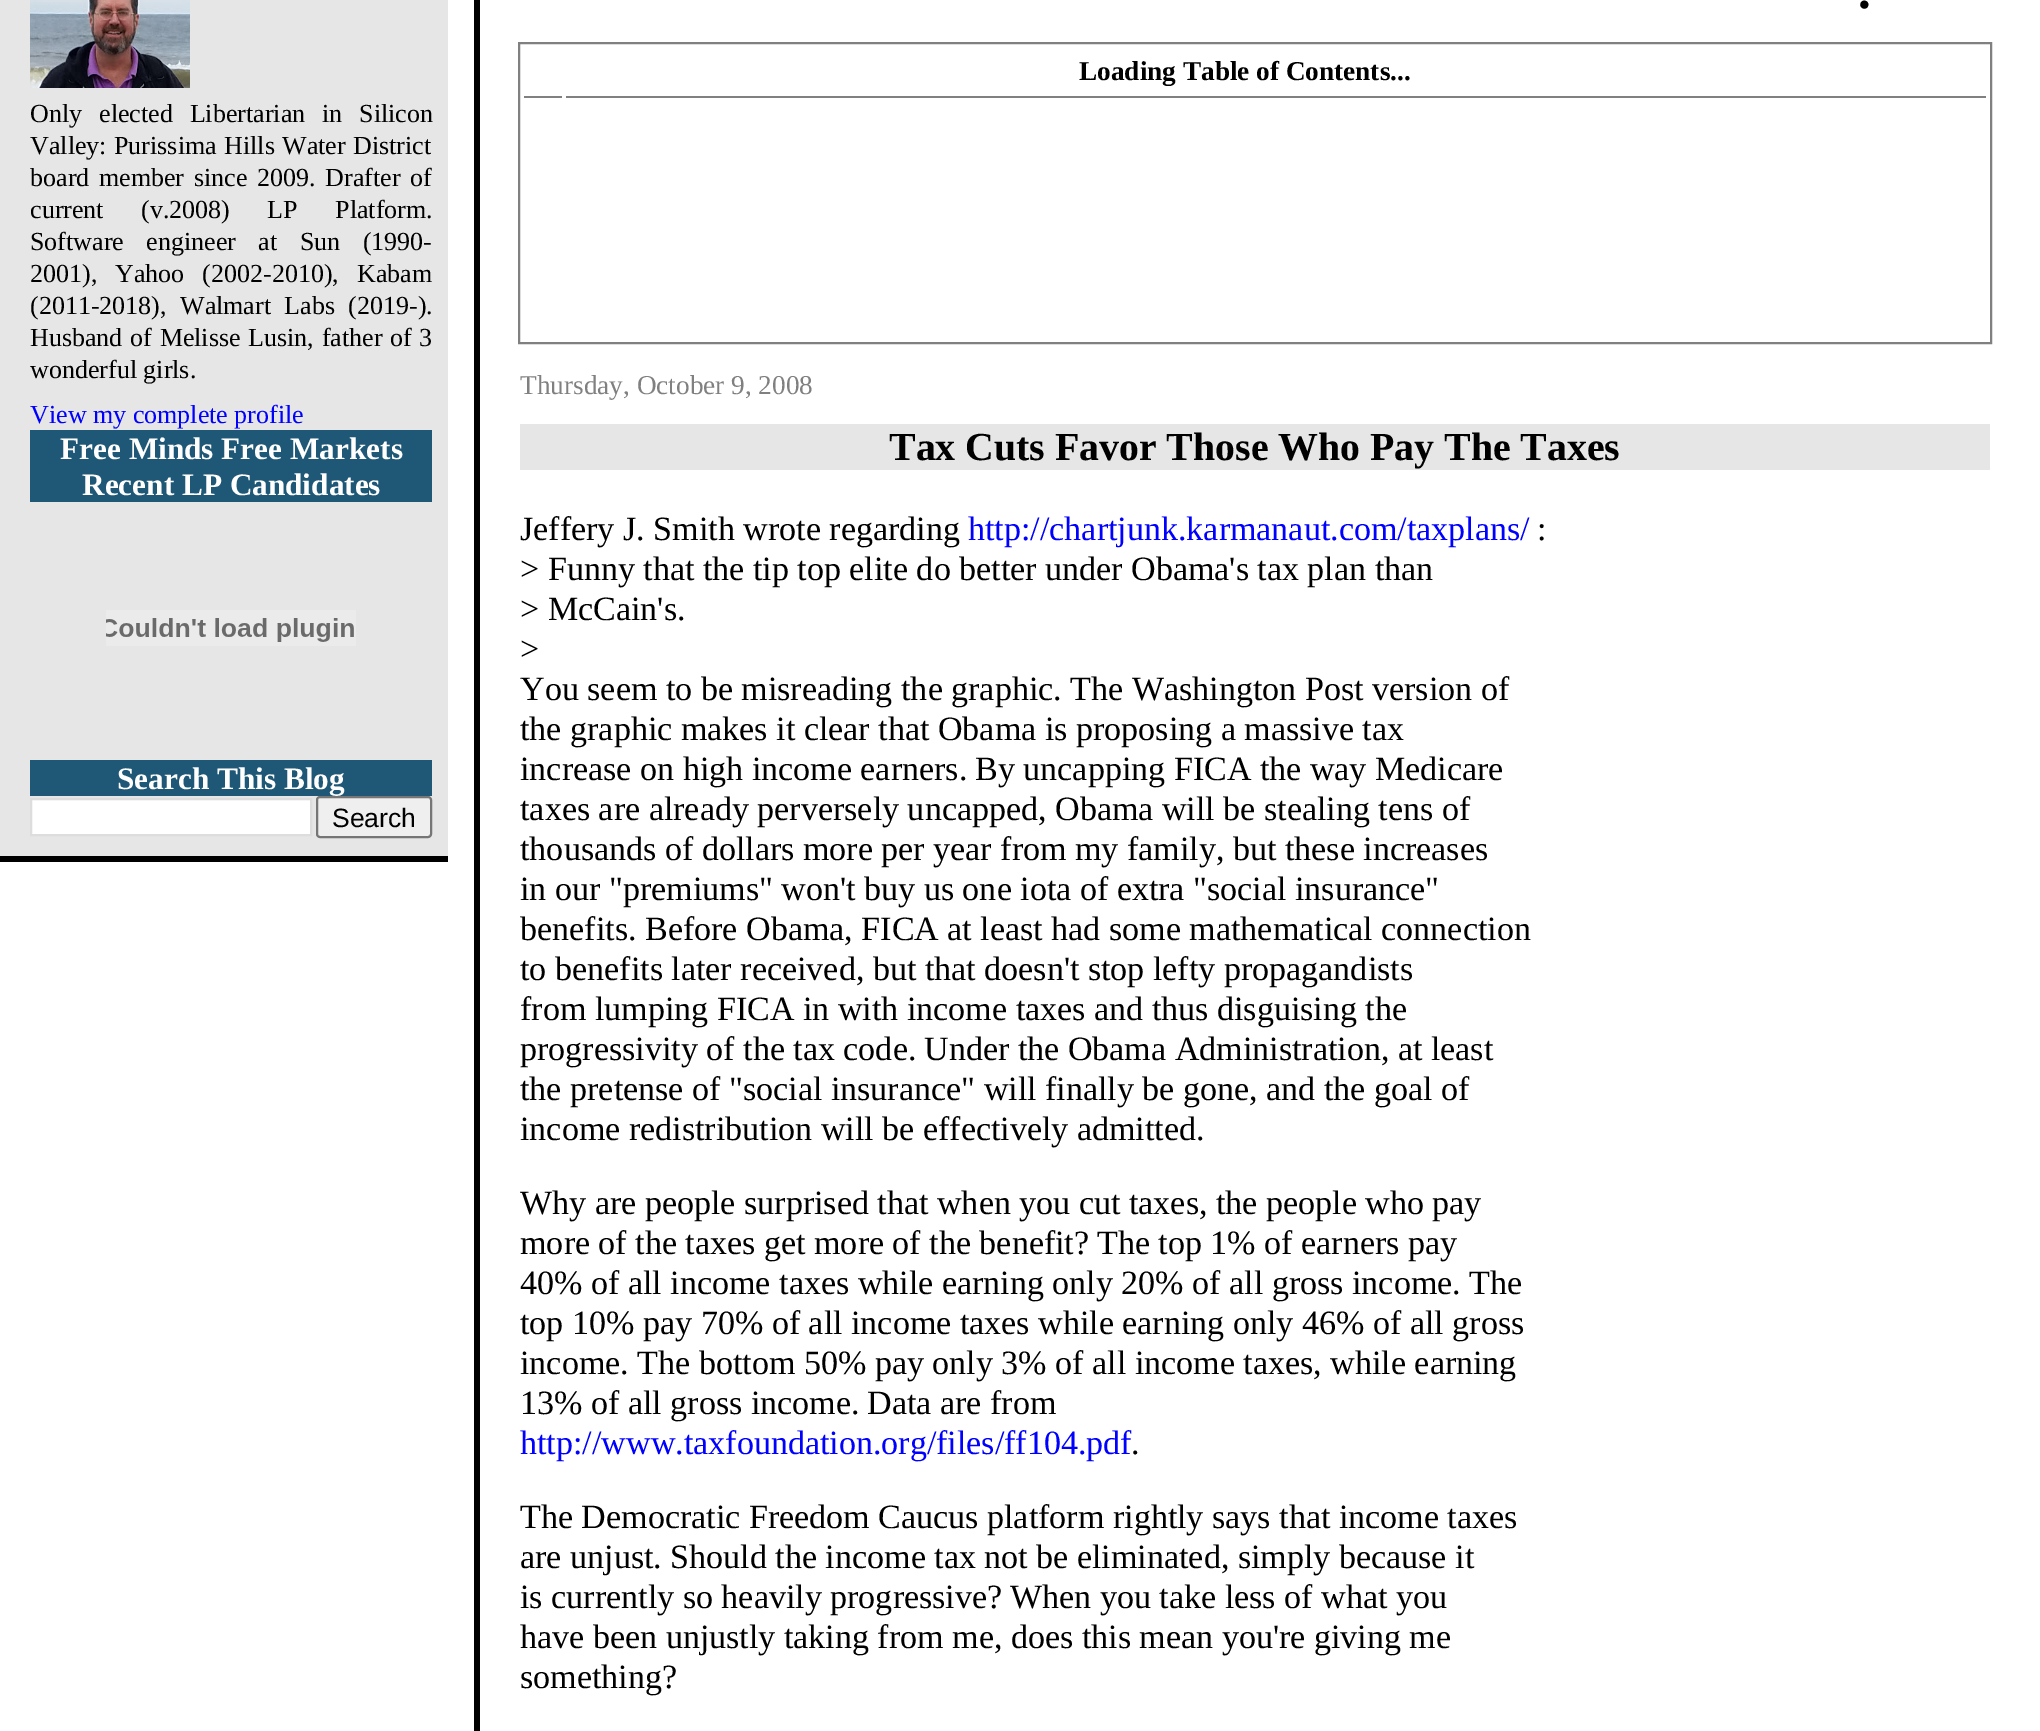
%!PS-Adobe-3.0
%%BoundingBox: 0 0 2040 1731
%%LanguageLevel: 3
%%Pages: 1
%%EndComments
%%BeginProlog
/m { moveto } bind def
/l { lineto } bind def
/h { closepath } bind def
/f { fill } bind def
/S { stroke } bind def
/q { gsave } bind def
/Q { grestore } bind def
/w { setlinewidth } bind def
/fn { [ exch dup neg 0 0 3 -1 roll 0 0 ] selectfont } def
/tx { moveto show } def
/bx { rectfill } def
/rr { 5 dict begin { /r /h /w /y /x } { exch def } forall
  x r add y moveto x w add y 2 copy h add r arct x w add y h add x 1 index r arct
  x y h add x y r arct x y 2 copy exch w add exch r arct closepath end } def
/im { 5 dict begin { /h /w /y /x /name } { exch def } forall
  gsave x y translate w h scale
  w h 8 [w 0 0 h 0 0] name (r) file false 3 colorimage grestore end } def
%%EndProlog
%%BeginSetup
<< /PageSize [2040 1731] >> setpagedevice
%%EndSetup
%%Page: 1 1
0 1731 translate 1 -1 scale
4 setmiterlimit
1 setgray
0 0 2040 1731 bx
0.902 setgray
0 0 448 856 bx
0 setgray
0 856 448 6 bx
(image0.raw) 30 0 160 88 im
/LiberationSerif-Regular 26 fn
30 122 m 10.5 0 32 (Only elected Libertarian in Silicon) widthshow
30 154 m 1 0 32 (Valley: Purissima Hills Water District) widthshow
30 186 m 3.25 0 32 (board member since 2009. Drafter of) widthshow
30 218 m 31 0 32 (current \(v.2008\) LP Platform.) widthshow
30 250 m 16 0 32 (Software engineer at Sun \(1990-) widthshow
30 282 m 11.5 0 32 (2001\), Yahoo \(2002-2010\), Kabam) widthshow
30 314 m 7 0 32 (\(2011-2018\), Walmart Labs \(2019-\).) widthshow
30 346 m 1.25 0 32 (Husband of Melisse Lusin, father of 3) widthshow
(wonderful girls.) 30 378 tx
0 0 1 setrgbcolor
(View my complete profile) 30 423 tx
0.122 0.345 0.463 setrgbcolor
30 430 402 72 bx
/LiberationSerif-Bold 31.25 fn
1 setgray
(Free Minds Free Markets) 60 459 tx
(Recent LP Candidates) 82 495 tx
(image1.raw) 106 610 250 36 im
0.122 0.345 0.463 setrgbcolor
30 760 402 36 bx
1 setgray
(Search This Blog) 117 789 tx
31 799 m 311 799 l 311 835 l 31 835 l h q f Q
0.867 setgray
2 w
S
0.937 setgray
317 797 114 40 3 rr q f Q
0.463 setgray
S
/LiberationSans-Regular 26.5 fn
0 setgray
(Search) 332 827 tx
474 0 6 1731 bx
/LiberationSerif-Bold 51 fn
(.) 1858 8 tx
0.502 setgray
519 43 1472 300 rectstroke
566 96 1420 2 bx
/LiberationSerif-Bold 27.25 fn
0 setgray
(Loading Table of Contents...) 1079 80 tx
0.502 setgray
524 96 38 2 bx
/LiberationSerif-Regular 27.25 fn
(Thursday, October 9, 2008) 520 394 tx
0.902 setgray
520 424 1470 46 bx
/LiberationSerif-Bold 39.8 fn
0 setgray
(Tax Cuts Favor Those Who Pay The Taxes) 889 460 tx
/LiberationSerif-Regular 34.05 fn
(Jeffery J. Smith wrote regarding) 520 540 tx
0 0 1 setrgbcolor
(http://chartjunk.karmanaut.com/taxplans/) 968 540 tx
0 setgray
(:) 1537 540 tx
(> Funny that the tip top elite do better under Obama's tax plan than) 520 580 tx
(> McCain's.) 520 620 tx
(>) 520 660 tx
(You seem to be misreading the graphic. The Washington Post version of) 520 700 tx
(the graphic makes it clear that Obama is proposing a massive tax) 520 740 tx
(increase on high income earners.) 520 780 tx
(By uncapping FICA the way Medicare) 975 780 tx
(taxes are already perversely uncapped, Obama will be stealing tens of) 520 820 tx
(thousands of dollars more per year from my family, but these increases) 520 860 tx
(in our "premiums" won't buy us one iota of extra "social insurance") 520 900 tx
(benefits. Before Obama, FICA at least had some mathematical connection) 520 940 tx
(to benefits later received, but that doesn't stop lefty propagandists) 520 980 tx
(from lumping FICA in with income taxes and thus disguising the) 520 1020 tx
(progressivity of the tax code.) 520 1060 tx
(Under the Obama Administration, at least) 924 1060 tx
(the pretense of "social insurance" will finally be gone, and the goal of) 520 1100 tx
(income redistribution will be effectively admitted.) 520 1140 tx
(Why are people surprised that when you cut taxes, the people who pay) 520 1214 tx
(more of the taxes get more of the benefit?) 520 1254 tx
(The top 1% of earners pay) 1097 1254 tx
(40% of all income taxes while earning only 20% of all gross income. The) 520 1294 tx
(top 10% pay 70% of all income taxes while earning only 46% of all gross) 520 1334 tx
(income. The bottom 50% pay only 3% of all income taxes, while earning) 520 1374 tx
(13% of all gross income.) 520 1414 tx
(Data are from) 867 1414 tx
0 0 1 setrgbcolor
(http://www.taxfoundation.org/files/ff104.pdf) 520 1454 tx
0 setgray
(.) 1131 1454 tx
(The Democratic Freedom Caucus platform rightly says that income taxes) 520 1528 tx
(are unjust. Should the income tax not be eliminated, simply because it) 520 1568 tx
(is currently so heavily progressive?) 520 1608 tx
(When you take less of what you) 1010 1608 tx
(have been unjustly taking from me, does this mean you're giving me) 520 1648 tx
(something?) 520 1688 tx
showpage
%%EOF
